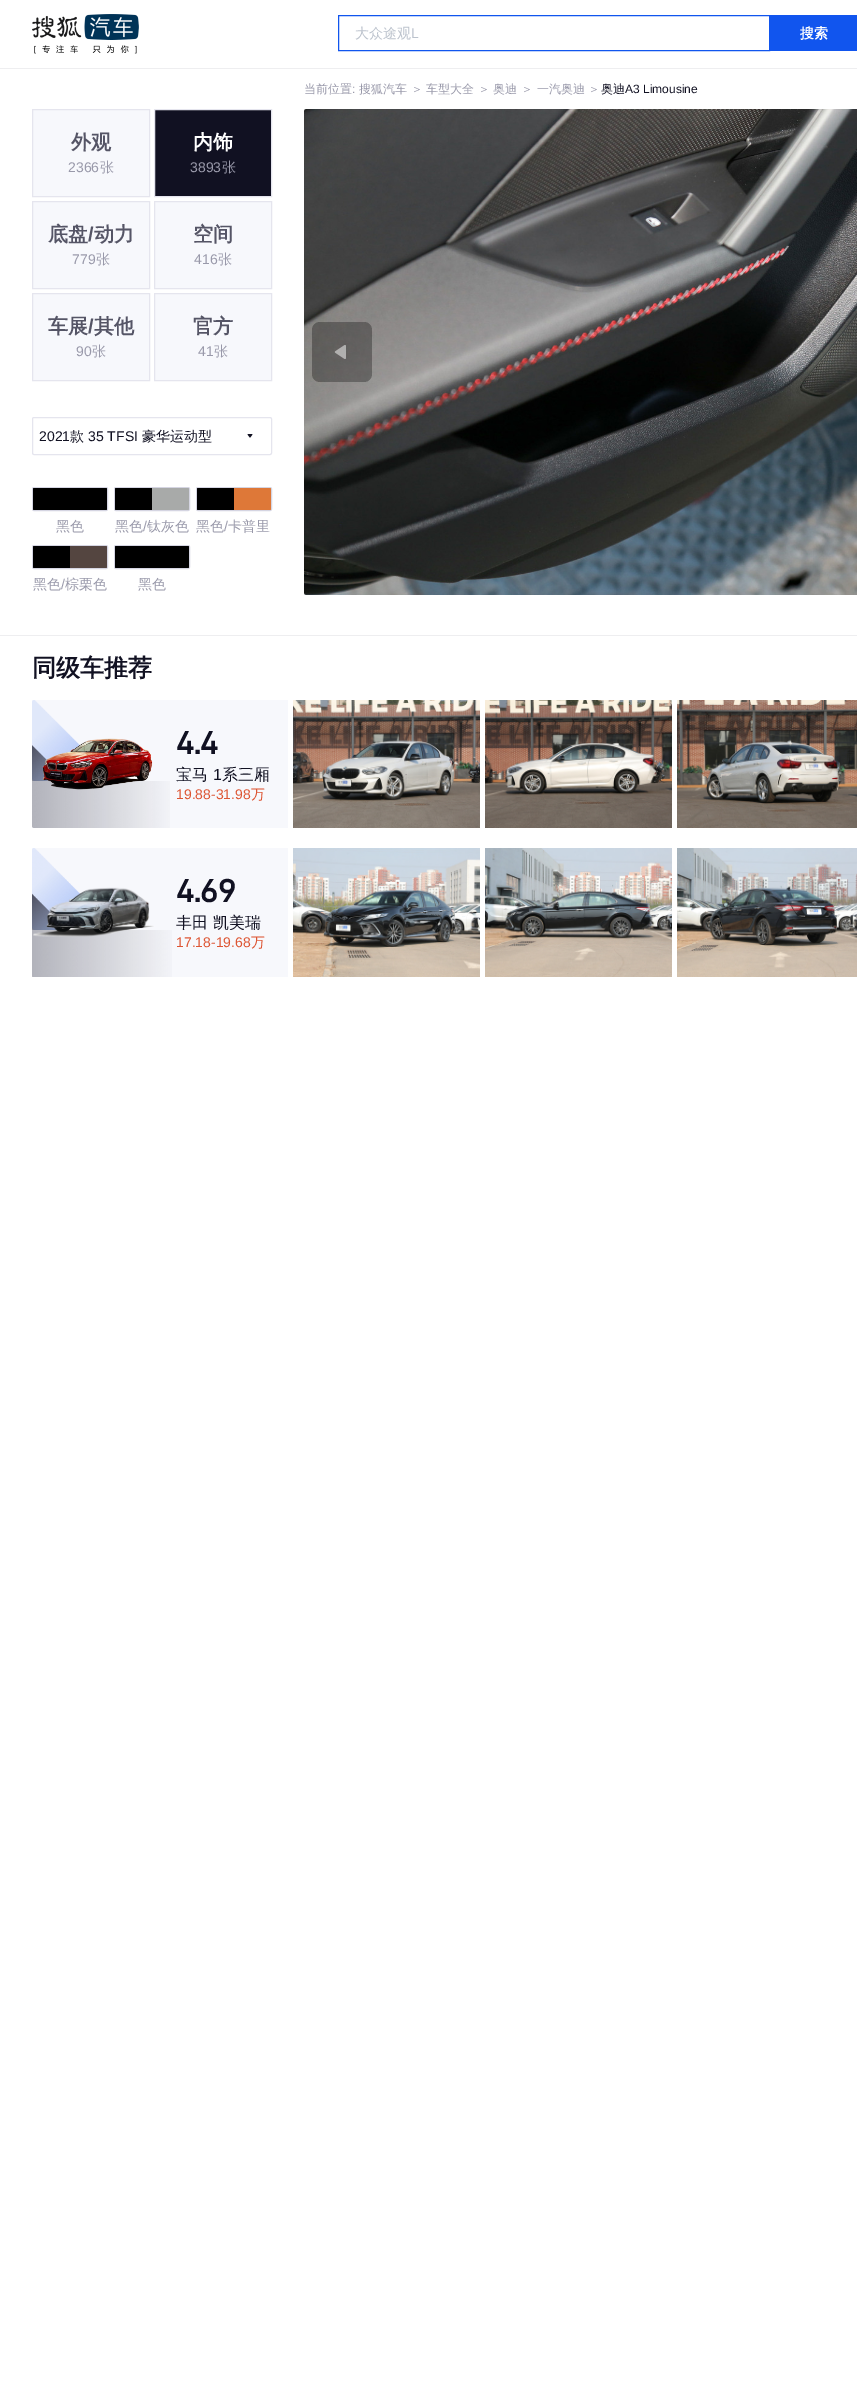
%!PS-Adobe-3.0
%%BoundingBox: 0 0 857 2395
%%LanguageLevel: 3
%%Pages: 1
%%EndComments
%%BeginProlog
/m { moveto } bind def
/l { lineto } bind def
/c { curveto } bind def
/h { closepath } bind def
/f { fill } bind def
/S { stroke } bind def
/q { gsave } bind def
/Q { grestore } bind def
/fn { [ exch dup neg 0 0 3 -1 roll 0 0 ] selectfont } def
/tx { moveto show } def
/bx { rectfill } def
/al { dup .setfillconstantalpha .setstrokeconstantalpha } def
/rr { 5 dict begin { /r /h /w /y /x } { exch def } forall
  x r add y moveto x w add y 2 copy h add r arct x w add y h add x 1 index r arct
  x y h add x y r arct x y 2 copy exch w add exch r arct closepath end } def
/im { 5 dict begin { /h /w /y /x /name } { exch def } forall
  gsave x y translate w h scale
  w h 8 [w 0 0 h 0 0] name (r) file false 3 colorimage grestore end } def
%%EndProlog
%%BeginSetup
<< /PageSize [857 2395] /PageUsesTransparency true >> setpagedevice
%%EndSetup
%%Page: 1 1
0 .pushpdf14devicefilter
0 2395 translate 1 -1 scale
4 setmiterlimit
1 setgray
0 0 857 2395 bx
0.933 0.933 0.941 setrgbcolor
0 68 857 1 bx
(image0.raw) 32 14 107 40 im
0.067 0.333 0.933 setrgbcolor
338.5 15.5 431 35 rectstroke
/WenQuanYiZenHei-Medium 14 fn
0.733 0.761 0.8 setrgbcolor
(大众途观) 355 38 tx
/LiberationSans-Regular 14 fn
(L) 411 38 tx
0.067 0.333 0.933 setrgbcolor
770 15 m 856 15 l 857 15 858 16 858 17 c 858 49 l 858 50 857 51 856 51 c 770 51 l h f
/WenQuanYiZenHei-Bold 14 fn
1 setgray
(搜索) 800 38 tx
/WenQuanYiZenHei-Medium 12 fn
0.6 0.6 0.667 setrgbcolor
(当前位置) 304 93 tx
/LiberationSans-Regular 12 fn
(:) 352 93 tx
/WenQuanYiZenHei-Medium 12 fn
(搜狐汽车 ＞ 车型大全 ＞ 奥迪 ＞ 一汽奥迪 ＞) 359 93 tx
0.067 0.067 0.133 setrgbcolor
(奥迪) 601 93 tx
/LiberationSans-Regular 12 fn
(A3 Limousine) 625 93 tx
0.969 0.973 0.988 setrgbcolor
32.5 109.5 m 149.5 109.5 l 149.5 196.5 l 32.5 196.5 l h q f Q
0.898 0.898 0.933 setrgbcolor
S
/WenQuanYiZenHei-Bold 20 fn
0.333 0.333 0.4 setrgbcolor
(外观) 71 149 tx
/LiberationSans-Regular 14 fn
0.6 0.6 0.667 setrgbcolor
(2366) 68 172 tx
/WenQuanYiZenHei-Medium 14 fn
(张) 100 172 tx
0.067 0.067 0.133 setrgbcolor
154.5 109.5 m 271.5 109.5 l 271.5 196.5 l 154.5 196.5 l h q f Q
0.898 0.898 0.933 setrgbcolor
S
/WenQuanYiZenHei-Bold 20 fn
1 setgray
(内饰) 193 149 tx
/LiberationSans-Regular 14 fn
0.6 0.6 0.667 setrgbcolor
(3893) 190 172 tx
/WenQuanYiZenHei-Medium 14 fn
(张) 222 172 tx
0.969 0.973 0.988 setrgbcolor
32.5 201.5 m 149.5 201.5 l 149.5 288.5 l 32.5 288.5 l h q f Q
0.898 0.898 0.933 setrgbcolor
S
/WenQuanYiZenHei-Bold 20 fn
0.333 0.333 0.4 setrgbcolor
(底盘) 48 241 tx
/LiberationSans-Bold 20 fn
(/) 88 241 tx
/WenQuanYiZenHei-Bold 20 fn
(动力) 94 241 tx
/LiberationSans-Regular 14 fn
0.6 0.6 0.667 setrgbcolor
(779) 72 264 tx
/WenQuanYiZenHei-Medium 14 fn
(张) 96 264 tx
0.969 0.973 0.988 setrgbcolor
154.5 201.5 m 271.5 201.5 l 271.5 288.5 l 154.5 288.5 l h q f Q
0.898 0.898 0.933 setrgbcolor
S
/WenQuanYiZenHei-Bold 20 fn
0.333 0.333 0.4 setrgbcolor
(空间) 193 241 tx
/LiberationSans-Regular 14 fn
0.6 0.6 0.667 setrgbcolor
(416) 194 264 tx
/WenQuanYiZenHei-Medium 14 fn
(张) 218 264 tx
0.969 0.973 0.988 setrgbcolor
32.5 293.5 m 149.5 293.5 l 149.5 380.5 l 32.5 380.5 l h q f Q
0.898 0.898 0.933 setrgbcolor
S
/WenQuanYiZenHei-Bold 20 fn
0.333 0.333 0.4 setrgbcolor
(车展) 48 333 tx
/LiberationSans-Bold 20 fn
(/) 88 333 tx
/WenQuanYiZenHei-Bold 20 fn
(其他) 94 333 tx
/LiberationSans-Regular 14 fn
0.6 0.6 0.667 setrgbcolor
(90) 76 356 tx
/WenQuanYiZenHei-Medium 14 fn
(张) 92 356 tx
0.969 0.973 0.988 setrgbcolor
154.5 293.5 m 271.5 293.5 l 271.5 380.5 l 154.5 380.5 l h q f Q
0.898 0.898 0.933 setrgbcolor
S
/WenQuanYiZenHei-Bold 20 fn
0.333 0.333 0.4 setrgbcolor
(官方) 193 333 tx
/LiberationSans-Regular 14 fn
0.6 0.6 0.667 setrgbcolor
(41) 198 356 tx
/WenQuanYiZenHei-Medium 14 fn
(张) 214 356 tx
0.898 0.898 0.933 setrgbcolor
32.5 417.5 239 37 1.5 rr S
/LiberationSans-Regular 14 fn
0.067 0.067 0.133 setrgbcolor
(2021) 39 441 tx
/WenQuanYiZenHei-Medium 14 fn
(款) 70 441 tx
/LiberationSans-Regular 14 fn
(35 TFSI) 88 441 tx
/WenQuanYiZenHei-Medium 14 fn
(豪华运动型) 142 441 tx
(image1.raw) 247 434 6 4 im
0.835 0.835 0.886 setrgbcolor
32.5 487.5 75 23 1.5 rr S
0 setgray
33 488 74 22 1 rr f
0.6 0.6 0.667 setrgbcolor
(黑色) 56 531 tx
0.835 0.835 0.886 setrgbcolor
114.5 487.5 75 23 1.5 rr S
0 setgray
116 488 m 152 488 l 152 510 l 116 510 l 115.5 510 115 509.5 115 509 c 115 489 l 115 488.5 115.5 488 116 488 c h f
0.659 0.667 0.663 setrgbcolor
152 488 m 188 488 l 188.5 488 189 488.5 189 489 c 189 509 l 189 509.5 188.5 510 188 510 c 152 510 l h f
0.6 0.6 0.667 setrgbcolor
(黑色) 115 531 tx
/LiberationSans-Regular 14 fn
(/) 143 531 tx
/WenQuanYiZenHei-Medium 14 fn
(钛灰色) 147 531 tx
0.835 0.835 0.886 setrgbcolor
196.5 487.5 75 23 1.5 rr S
0 setgray
198 488 m 234 488 l 234 510 l 198 510 l 197.5 510 197 509.5 197 509 c 197 489 l 197 488.5 197.5 488 198 488 c h f
0.871 0.471 0.22 setrgbcolor
234 488 m 270 488 l 270.5 488 271 488.5 271 489 c 271 509 l 271 509.5 270.5 510 270 510 c 234 510 l h f
0.6 0.6 0.667 setrgbcolor
(黑色) 196 531 tx
/LiberationSans-Regular 14 fn
(/) 224 531 tx
/WenQuanYiZenHei-Medium 14 fn
(卡普里) 228 531 tx
0.835 0.835 0.886 setrgbcolor
32.5 545.5 75 23 1.5 rr S
0 setgray
34 546 m 70 546 l 70 568 l 34 568 l 33.5 568 33 567.5 33 567 c 33 547 l 33 546.5 33.5 546 34 546 c h f
0.329 0.271 0.251 setrgbcolor
70 546 m 106 546 l 106.5 546 107 546.5 107 547 c 107 567 l 107 567.5 106.5 568 106 568 c 70 568 l h f
0.6 0.6 0.667 setrgbcolor
(黑色) 33 589 tx
/LiberationSans-Regular 14 fn
(/) 61 589 tx
/WenQuanYiZenHei-Medium 14 fn
(棕栗色) 65 589 tx
0.835 0.835 0.886 setrgbcolor
114.5 545.5 75 23 1.5 rr S
0 setgray
115 546 74 22 1 rr f
0.6 0.6 0.667 setrgbcolor
(黑色) 138 589 tx
(image2.raw) 304 109 553 486 im
0.3 al
0 setgray
312 322 60 60 8 rr f
1 al
(image3.raw) 334 345 12 14 im
0.933 0.933 0.941 setrgbcolor
0 635 857 1 bx
/WenQuanYiZenHei-Bold 24 fn
0.067 0.067 0.133 setrgbcolor
(同级车推荐) 32 676 tx
0.969 0.973 0.988 setrgbcolor
32 700 256 128 bx
(image4.raw) 32 700 138 128 im
(image5.raw) 42 738 111 52 im
/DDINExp-Bold 32 fn
0.067 0.067 0.133 setrgbcolor
(4.4) 176 754 tx
/WenQuanYiZenHei-Medium 16 fn
(宝马) 176 780 tx
/LiberationSans-Regular 16 fn
(1) 213 780 tx
/WenQuanYiZenHei-Medium 16 fn
(系三厢) 222 780 tx
/LiberationSans-Regular 14 fn
0.867 0.333 0.2 setrgbcolor
(19.88-31.98) 176 799 tx
/WenQuanYiZenHei-Medium 14 fn
(万) 251 799 tx
(image6.raw) 293 700 187 128 im
(image7.raw) 485 700 187 128 im
(image8.raw) 677 700 180 128 im
0.969 0.973 0.988 setrgbcolor
32 848 256 129 bx
(image9.raw) 32 848 140 129 im
(image10.raw) 33 887 121 50 im
/DDINExp-Bold 32 fn
0.067 0.067 0.133 setrgbcolor
(4.69) 176 902 tx
/WenQuanYiZenHei-Medium 16 fn
(丰田 凯美瑞) 176 928 tx
/LiberationSans-Regular 14 fn
0.867 0.333 0.2 setrgbcolor
(17.18-19.68) 176 947 tx
/WenQuanYiZenHei-Medium 14 fn
(万) 251 947 tx
(image11.raw) 293 848 187 129 im
(image12.raw) 485 848 187 129 im
(image13.raw) 677 848 180 129 im
.poppdf14devicefilter showpage
%%EOF
